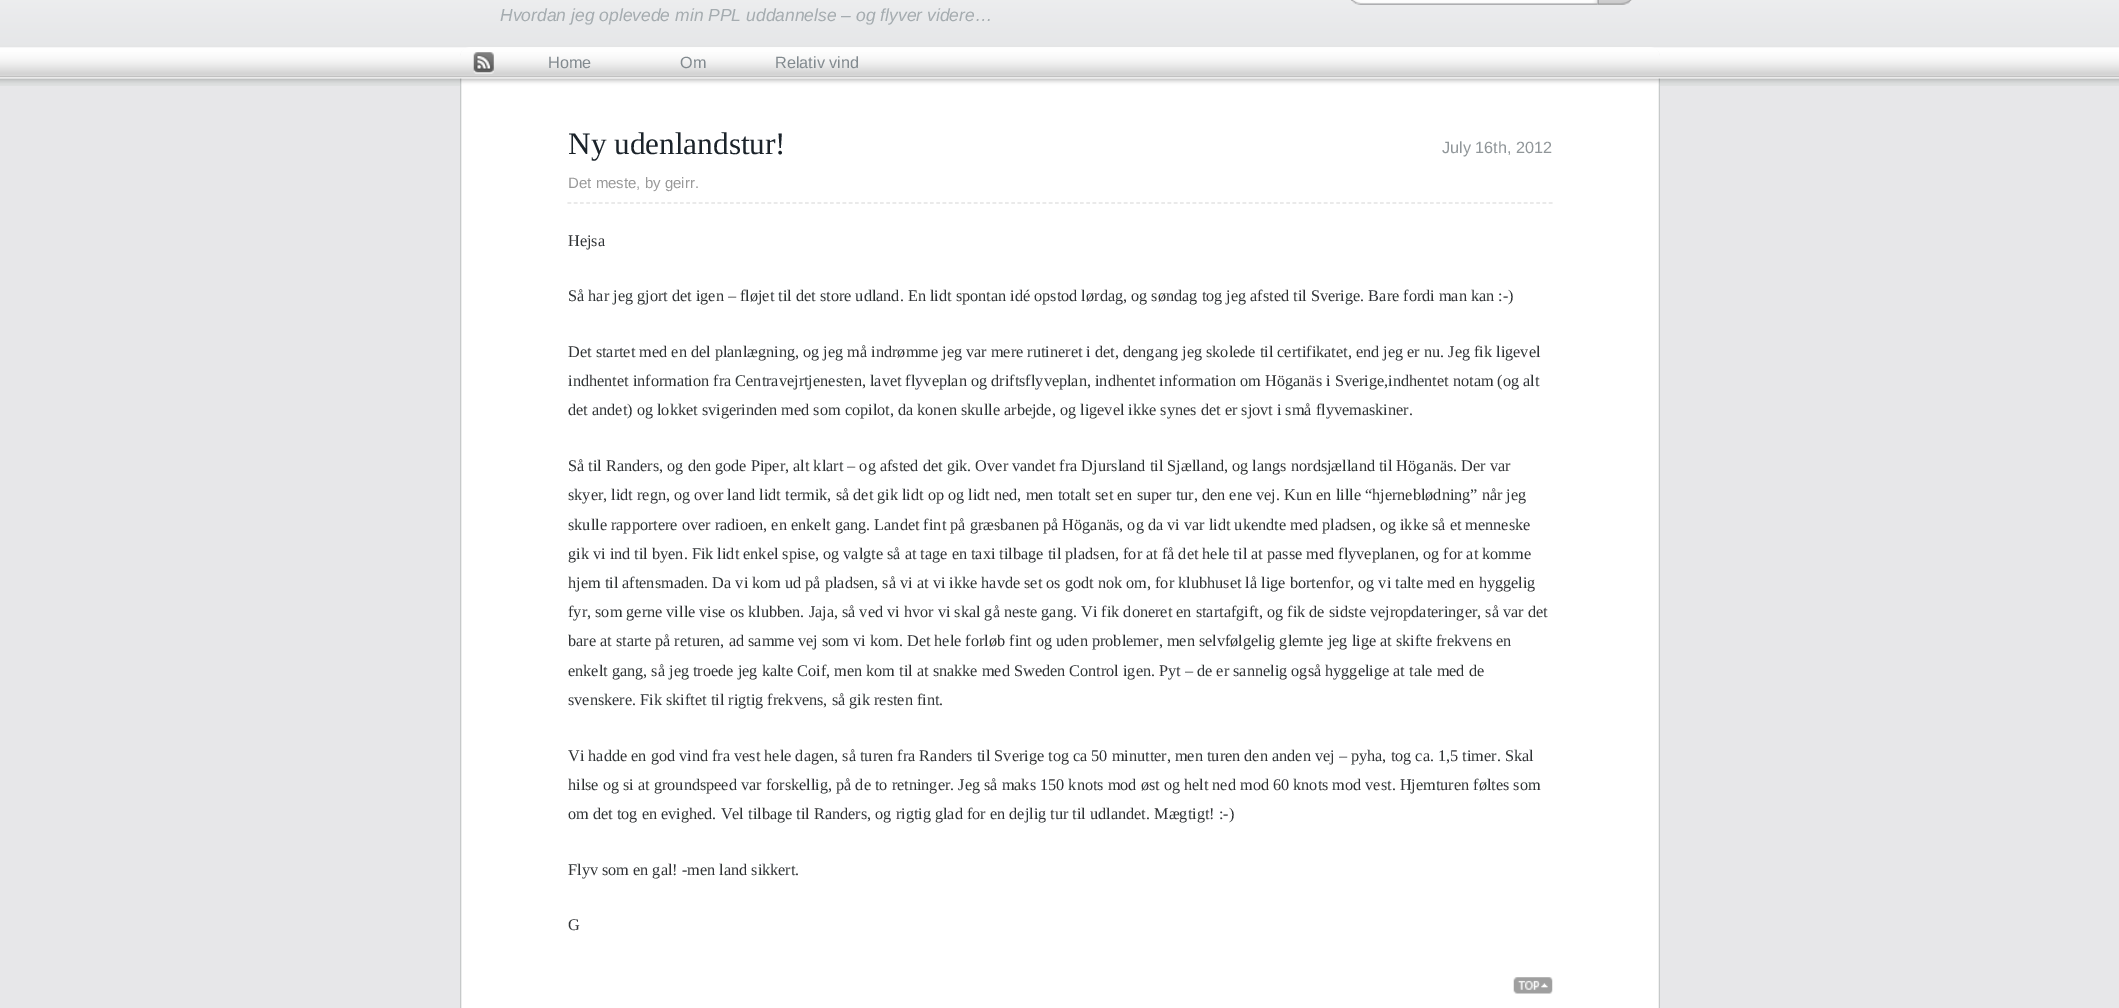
%!PS-Adobe-3.0
%%BoundingBox: 0 0 2119 1008
%%LanguageLevel: 3
%%Pages: 1
%%EndComments
%%BeginProlog
/m { moveto } bind def
/l { lineto } bind def
/S { stroke } bind def
/w { setlinewidth } bind def
/fn { [ exch dup neg 0 0 3 -1 roll 0 0 ] selectfont } def
/tx { moveto show } def
/bx { rectfill } def
/im { 5 dict begin { /h /w /y /x /name } { exch def } forall
  gsave x y translate w h scale
  w h 8 [w 0 0 h 0 0] name (r) file false 3 colorimage grestore end } def
%%EndProlog
%%BeginSetup
<< /PageSize [2119 1008] >> setpagedevice
%%EndSetup
%%Page: 1 1
0 1008 translate 1 -1 scale
4 setmiterlimit
0.906 0.906 0.914 setrgbcolor
0 0 2119 1008 bx
(image0.raw) 0 0 2119 86 im
(image1.raw) 1351 0 247 5 im
(image2.raw) 1597 0 35 5 im
/LiberationSans-Italic 17.5 fn
0.647 0.675 0.69 setrgbcolor
(Hvordan jeg oplevede min PPL uddannelse – og flyver videre…) 500 21 tx
(image3.raw) 460 47 1200 39 im
(image4.raw) 473 52 21 22 im
/LiberationSans-Regular 16.25 fn
0.51 0.541 0.561 setrgbcolor
(Home) 548 68 tx
(Om) 680 68 tx
(Relativ vind) 775 68 tx
(image5.raw) 460 86 1200 922 im
0.89 setgray
1.2 w
[3.75 2.5] 0 setdash
567.5 203 m 1552.5 203 l S
/LiberationSerif-Regular 31.25 fn
0.106 0.137 0.165 setrgbcolor
(Ny udenlandstur!) 568 154 tx
/LiberationSans-Regular 16.25 fn
0.565 0.588 0.6 setrgbcolor
(July 16th, 2012) 1442 153 tx
/LiberationSans-Regular 15 fn
0.6 setgray
(Det meste, by geirr.) 568 188 tx
/LiberationSerif-Regular 16.25 fn
0.192 0.204 0.212 setrgbcolor
(Hejsa) 568 246 tx
(Så har jeg gjort det igen – fløjet til det store udland. En lidt spontan idé opstod lørdag, og søndag tog jeg afsted til Sverige. Bare fordi man kan :-\)) 568 301 tx
(Det startet med en del planlægning, og jeg må indrømme jeg var mere rutineret i det, dengang jeg skolede til certifikatet, end jeg er nu. Jeg fik ligevel) 568 357 tx
(indhentet information fra Centravejrtjenesten, lavet flyveplan og driftsflyveplan, indhentet information om Höganäs i Sverige,indhentet notam \(og alt) 568 386 tx
(det andet\) og lokket svigerinden med som copilot, da konen skulle arbejde, og ligevel ikke synes det er sjovt i små flyvemaskiner.) 568 415 tx
(Så til Randers, og den gode Piper, alt klart – og afsted det gik. Over vandet fra Djursland til Sjælland, og langs nordsjælland til Höganäs. Der var) 568 471 tx
(skyer, lidt regn, og over land lidt termik, så det gik lidt op og lidt ned, men totalt set en super tur, den ene vej. Kun en lille “hjerneblødning” når jeg) 568 500 tx
(skulle rapportere over radioen, en enkelt gang. Landet fint på græsbanen på Höganäs, og da vi var lidt ukendte med pladsen, og ikke så et menneske) 568 530 tx
(gik vi ind til byen. Fik lidt enkel spise, og valgte så at tage en taxi tilbage til pladsen, for at få det hele til at passe med flyveplanen, og for at komme) 568 559 tx
(hjem til aftensmaden. Da vi kom ud på pladsen, så vi at vi ikke havde set os godt nok om, for klubhuset lå lige bortenfor, og vi talte med en hyggelig) 568 588 tx
(fyr, som gerne ville vise os klubben. Jaja, så ved vi hvor vi skal gå neste gang. Vi fik doneret en startafgift, og fik de sidste vejropdateringer, så var det) 568 617 tx
(bare at starte på returen, ad samme vej som vi kom. Det hele forløb fint og uden problemer, men selvfølgelig glemte jeg lige at skifte frekvens en) 568 646 tx
(enkelt gang, så jeg troede jeg kalte Coif, men kom til at snakke med Sweden Control igen. Pyt – de er sannelig også hyggelige at tale med de) 568 676 tx
(svenskere. Fik skiftet til rigtig frekvens, så gik resten fint.) 568 705 tx
(Vi hadde en god vind fra vest hele dagen, så turen fra Randers til Sverige tog ca 50 minutter, men turen den anden vej – pyha, tog ca. 1,5 timer. Skal) 568 761 tx
(hilse og si at groundspeed var forskellig, på de to retninger. Jeg så maks 150 knots mod øst og helt ned mod 60 knots mod vest. Hjemturen føltes som) 568 790 tx
(om det tog en evighed. Vel tilbage til Randers, og rigtig glad for en dejlig tur til udlandet. Mægtigt! :-\)) 568 819 tx
(Flyv som en gal! -men land sikkert.) 568 875 tx
(G) 568 930 tx
(image6.raw) 1513 977 40 17 im
showpage
%%EOF
